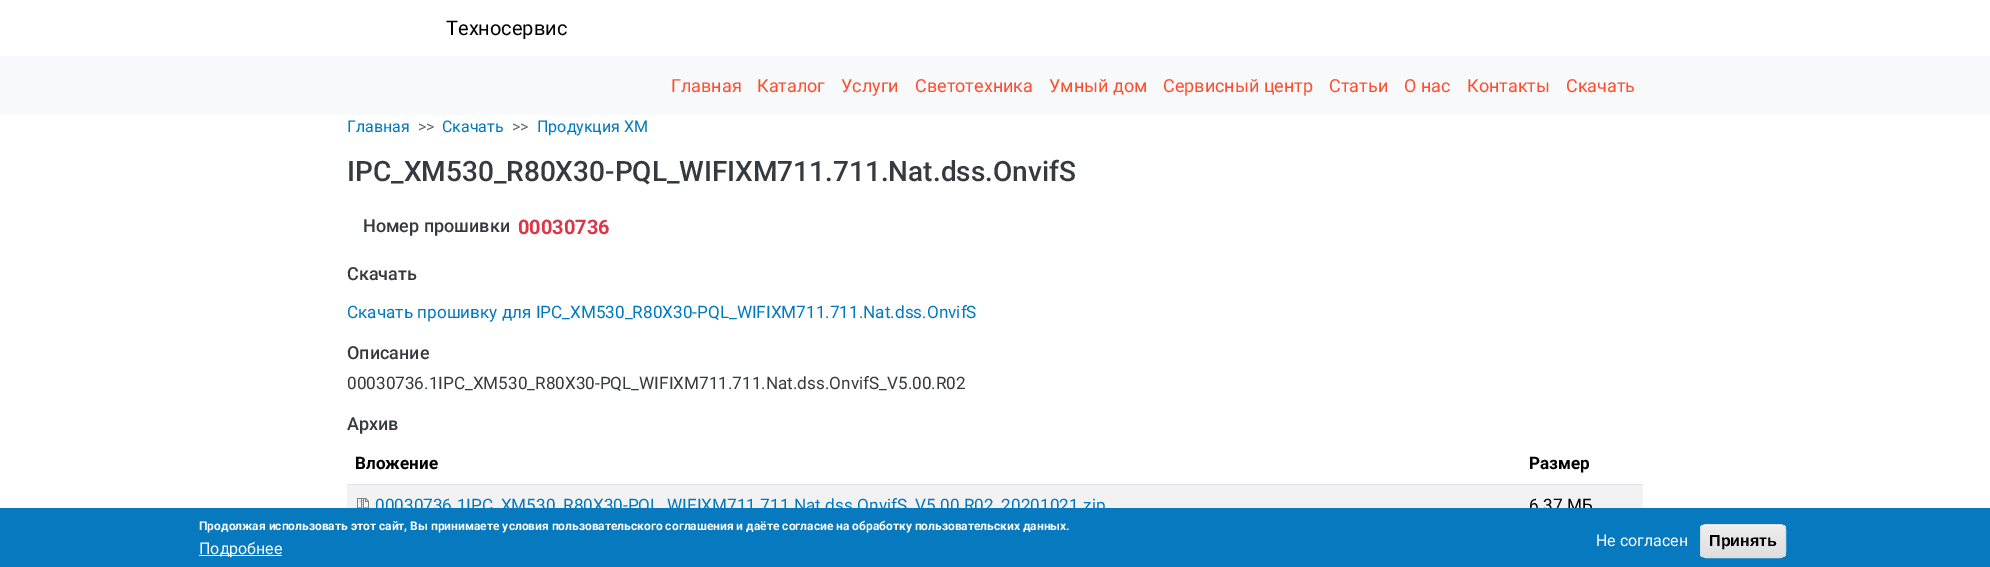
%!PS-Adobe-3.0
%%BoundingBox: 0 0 1990 567
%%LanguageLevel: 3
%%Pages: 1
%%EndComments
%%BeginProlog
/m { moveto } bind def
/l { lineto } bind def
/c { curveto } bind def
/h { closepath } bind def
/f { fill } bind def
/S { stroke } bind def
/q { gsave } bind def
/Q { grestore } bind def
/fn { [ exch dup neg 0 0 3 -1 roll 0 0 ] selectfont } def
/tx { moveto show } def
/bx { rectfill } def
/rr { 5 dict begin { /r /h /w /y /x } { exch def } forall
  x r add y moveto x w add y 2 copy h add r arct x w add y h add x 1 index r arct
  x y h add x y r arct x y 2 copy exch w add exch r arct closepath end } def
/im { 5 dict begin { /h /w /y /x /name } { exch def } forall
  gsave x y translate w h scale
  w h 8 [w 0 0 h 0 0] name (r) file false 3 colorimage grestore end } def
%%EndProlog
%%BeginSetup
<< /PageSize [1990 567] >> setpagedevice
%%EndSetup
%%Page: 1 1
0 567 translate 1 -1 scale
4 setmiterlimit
1 setgray
0 0 1990 567 bx
/Roboto-Regular 20 fn
0 setgray
(Техносервис) 446 35 tx
0.973 0.976 0.98 setrgbcolor
0 56 1990 59 bx
/Roboto-Regular 18 fn
1 0.306 0.18 setrgbcolor
(Главная) 671 92 tx
(Каталог) 757 92 tx
(Услуги) 841 92 tx
(Светотехника) 915 92 tx
(Умный дом) 1049 92 tx
(Сервисный центр) 1163 92 tx
(Статьи) 1329 92 tx
(О нас) 1404 92 tx
(Контакты) 1467 92 tx
(Скачать) 1566 92 tx
/Roboto-Regular 16 fn
0 0.475 0.753 setrgbcolor
(Главная) 347 132 tx
0.404 0.42 0.439 setrgbcolor
(>>) 418 132 tx
0 0.475 0.753 setrgbcolor
(Скачать) 442 132 tx
0.404 0.42 0.439 setrgbcolor
(>>) 512 132 tx
0 0.475 0.753 setrgbcolor
(Продукция XM) 537 132 tx
/Roboto-Medium 28 fn
0.204 0.227 0.251 setrgbcolor
(IPC_XM530_R80X30-PQL_WIFIXM711.711.Nat.dss.OnvifS) 347 181 tx
/Roboto-Medium 18 fn
(Номер прошивки) 363 232 tx
/Roboto-Bold 20 fn
0.863 0.208 0.271 setrgbcolor
(00030736) 518 234 tx
/Roboto-Medium 18 fn
0.204 0.227 0.251 setrgbcolor
(Скачать) 347 280 tx
/Roboto-Regular 17.15 fn
0 0.475 0.753 setrgbcolor
(Скачать прошивку для IPC_XM530_R80X30-PQL_WIFIXM711.711.Nat.dss.OnvifS) 347 318 tx
/Roboto-Medium 18 fn
0.204 0.227 0.251 setrgbcolor
(Описание) 347 359 tx
/Roboto-Regular 17.15 fn
(00030736.1IPC_XM530_R80X30-PQL_WIFIXM711.711.Nat.dss.OnvifS_V5.00.R02) 347 389 tx
/Roboto-Medium 18 fn
(Архив) 347 430 tx
/Roboto-Bold 17.15 fn
0 setgray
(Вложение) 355 469 tx
0.871 0.886 0.902 setrgbcolor
347 484 1296 1 bx
0 setgray
(Размер) 1529 469 tx
0.949 setgray
347 485 1296 23 bx
(image0.raw) 357 498 12 10 im
/Roboto-Regular 17.15 fn
0 0.475 0.753 setrgbcolor
(00030736.1IPC_XM530_R80X30-PQL_WIFIXM711.711.Nat.dss.OnvifS_V5.00.R02_20201021.zip) 375 511 tx
0 setgray
(6.37 МБ) 1529 511 tx
0.027 0.475 0.749 setrgbcolor
0 508 1990 59 bx
/Roboto-Bold 12 fn
1 setgray
(Продолжая использовать этот сайт, Вы принимаете условия пользовательского соглашения и даёте согласие на обработку пользовательских данных.) 199 530 tx
199 555 83 1 bx
/Roboto-Regular 16 fn
(Подробнее) 199 554 tx
(Не согласен) 1596 546 tx
q
1700 524 86 34 6 rr clip newpath
q 1700 525 m 1786 525 l 1786 557 l 1700 557 l h clip newpath
<< /ShadingType 2 /ColorSpace /DeviceRGB /Coords [1743 525 1743 557] /Extend [true true] /Function << /FunctionType 3 /Domain [0 1] /Functions [<< /FunctionType 2 /Domain [0 1] /C0 [0.929 0.929 0.929] /C1 [0.929 0.929 0.929] /N 1 >> << /FunctionType 2 /Domain [0 1] /C0 [0.929 0.929 0.929] /C1 [0.875 0.875 0.875] /N 1 >>] /Bounds [0.05] /Encode [0 1 0 1] >> >> shfill Q
Q
1706 526 m 1780 526 l 1783 526 1785 528 1785 531 c 1785 522 1773 525 1768 525 c 1718 525 l 1713 525 1701 522 1701 531 c 1701 528 1703 526 1706 526 c h f
0.863 setgray
1700.5 524.5 85 33 5.5 rr S
/LiberationSans-Bold 16 fn
0 setgray
(Принять) 1709 546 tx
showpage
%%EOF
